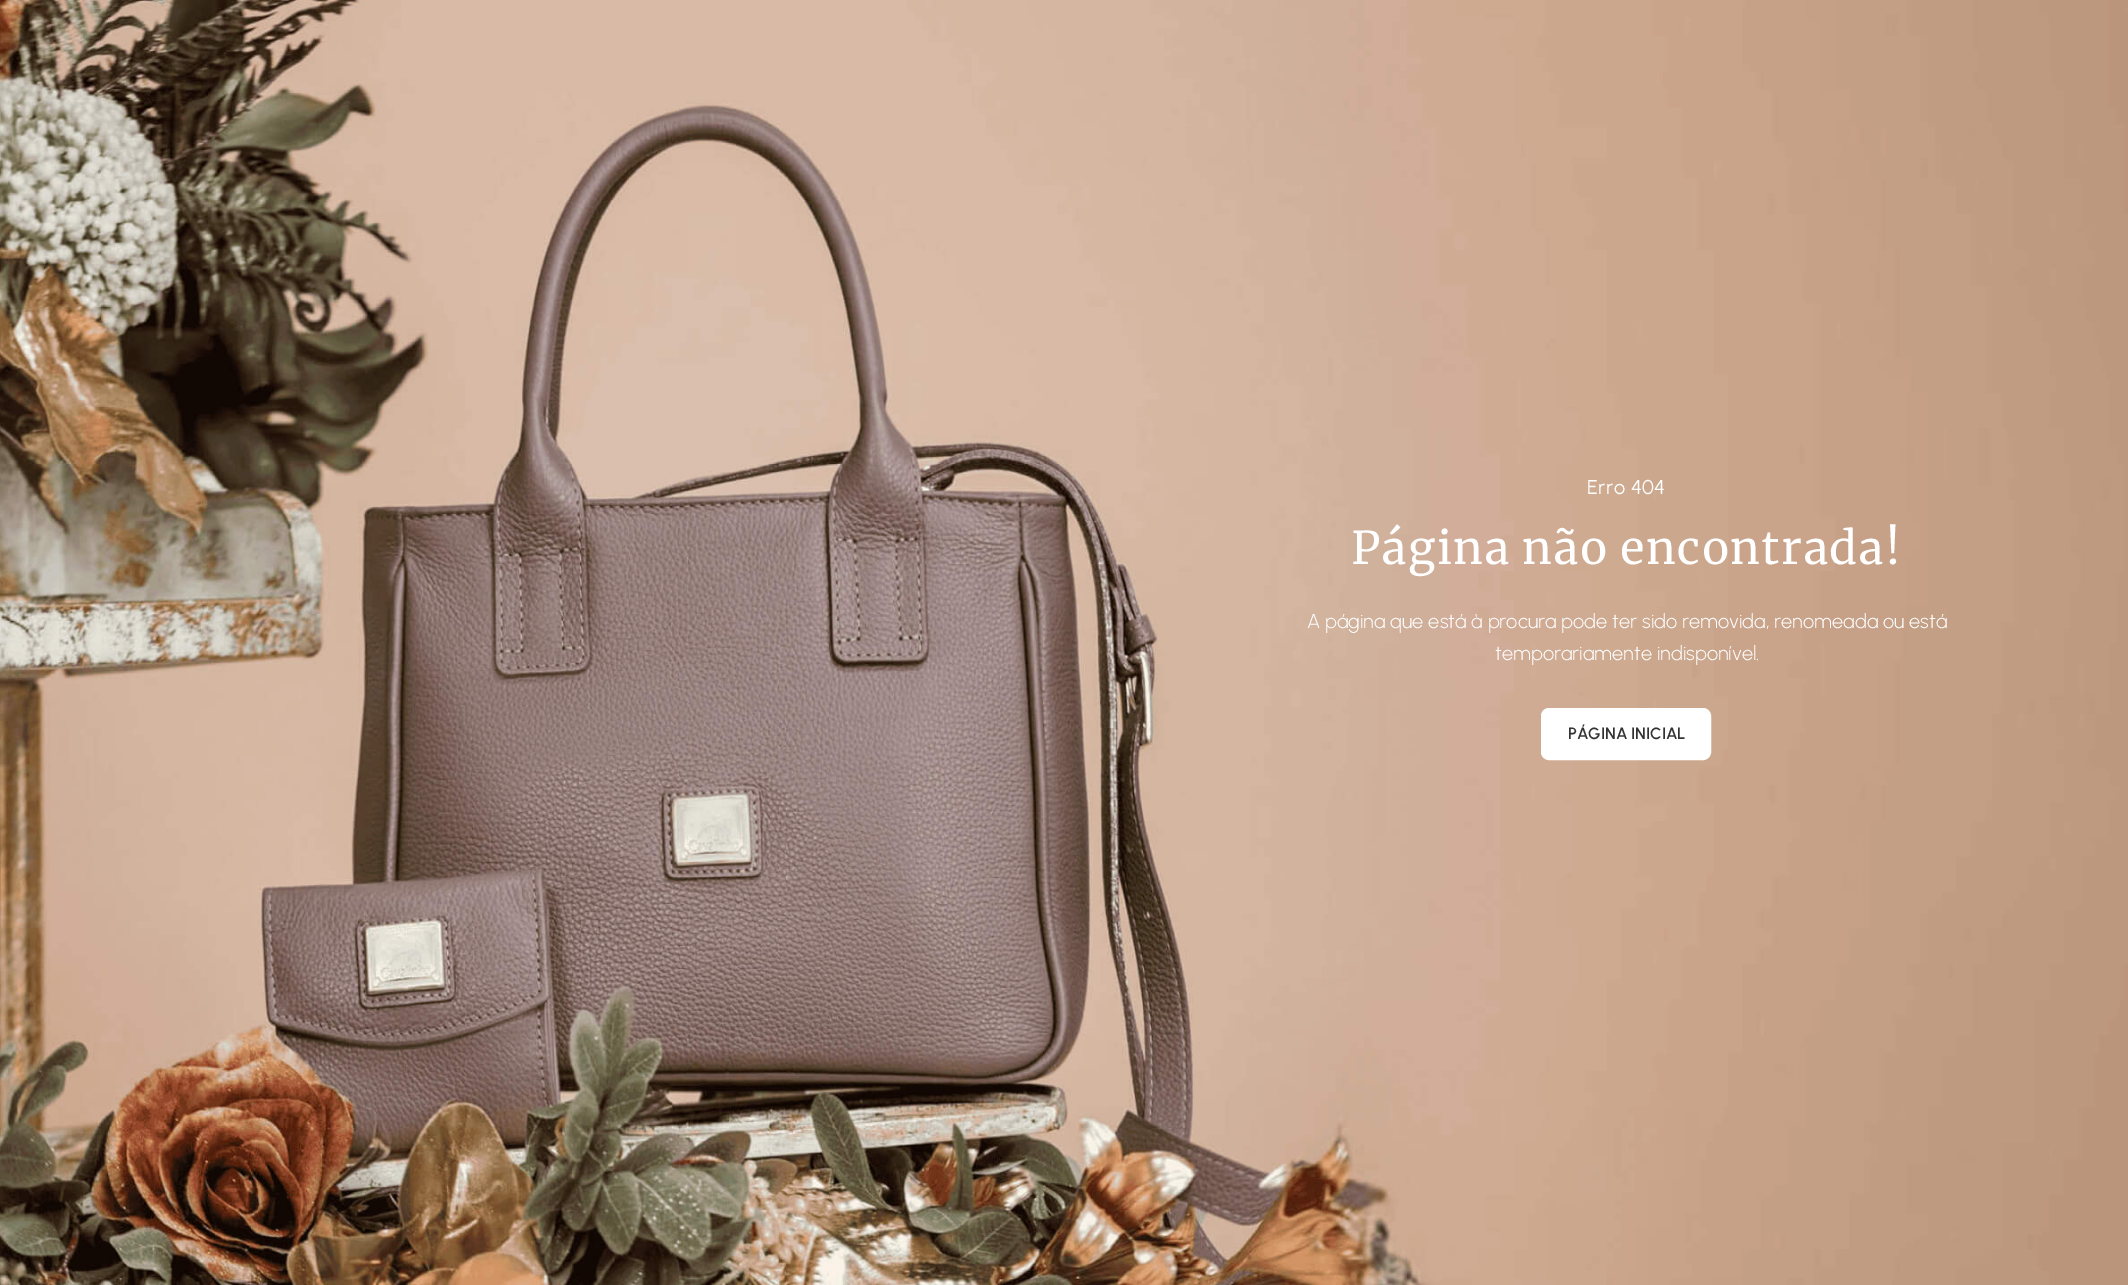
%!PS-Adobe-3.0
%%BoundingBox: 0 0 2128 1285
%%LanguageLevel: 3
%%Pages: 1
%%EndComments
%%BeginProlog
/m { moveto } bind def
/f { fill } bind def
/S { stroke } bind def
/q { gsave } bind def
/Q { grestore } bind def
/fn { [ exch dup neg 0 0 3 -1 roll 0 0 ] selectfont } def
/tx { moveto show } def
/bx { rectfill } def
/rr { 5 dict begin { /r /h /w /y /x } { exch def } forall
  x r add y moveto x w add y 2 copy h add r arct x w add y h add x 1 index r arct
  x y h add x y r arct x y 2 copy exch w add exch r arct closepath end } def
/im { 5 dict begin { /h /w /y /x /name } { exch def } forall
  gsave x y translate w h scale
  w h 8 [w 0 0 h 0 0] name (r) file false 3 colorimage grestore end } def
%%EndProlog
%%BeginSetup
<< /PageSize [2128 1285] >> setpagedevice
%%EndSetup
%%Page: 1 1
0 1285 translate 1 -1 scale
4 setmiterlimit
1 setgray
0 0 2128 1285 bx
(image0.raw) 0 0 2128 1285 im
/Urbanist-Regular 20 fn
1587 494 m 0.5 0 (Erro 404) ashow
/Merriweather-Regular 45 fn
1351 564 m 1.25 0 (Página não encontrada!) ashow
/Urbanist-Light 20 fn
(A página que está à procura pode ter sido removida, renomeada ou está) 1307 628 tx
(temporariamente indisponível.) 1495 660 tx
1541.5 708.5 169 51 7.5 rr q f Q
S
/Urbanist-SemiBold 16.25 fn
0.2 setgray
(PÁGINA INICIAL) 1568 739 tx
showpage
%%EOF
